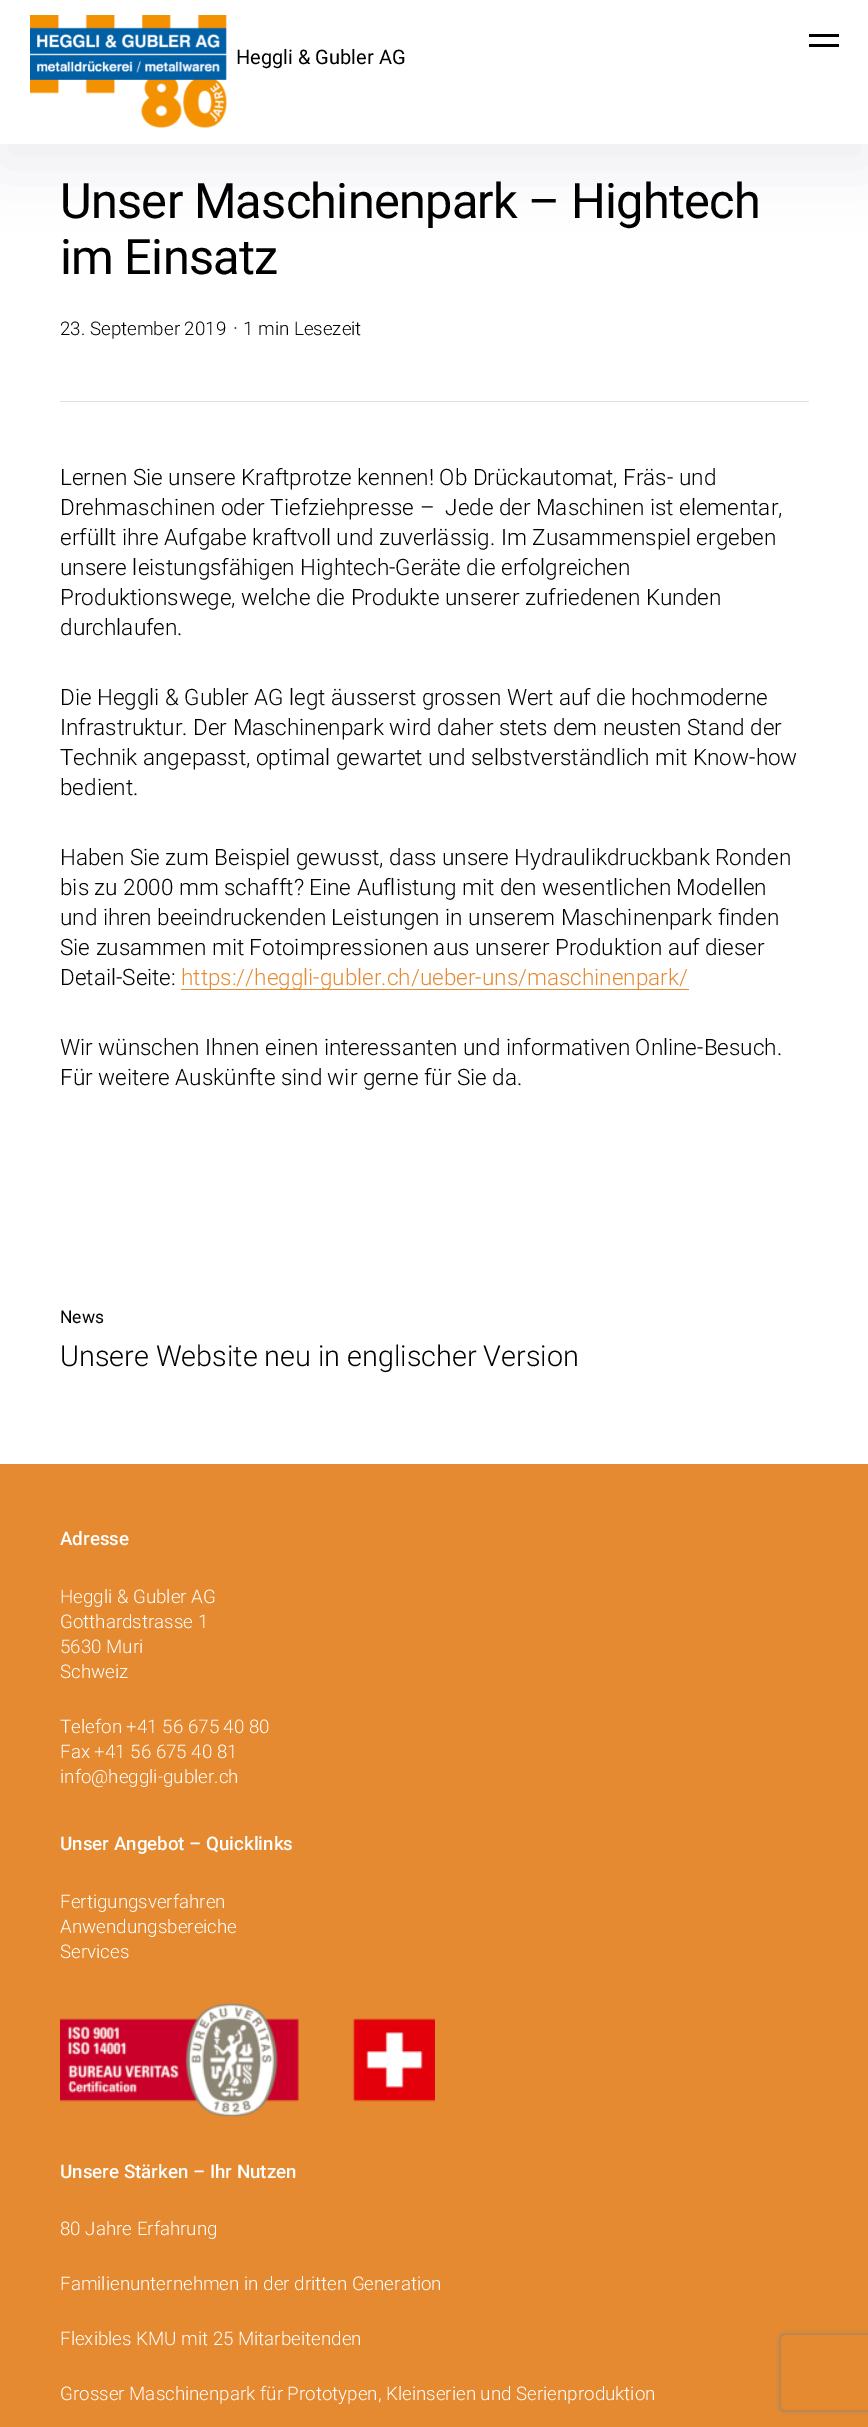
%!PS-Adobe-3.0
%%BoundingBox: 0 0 868 2427
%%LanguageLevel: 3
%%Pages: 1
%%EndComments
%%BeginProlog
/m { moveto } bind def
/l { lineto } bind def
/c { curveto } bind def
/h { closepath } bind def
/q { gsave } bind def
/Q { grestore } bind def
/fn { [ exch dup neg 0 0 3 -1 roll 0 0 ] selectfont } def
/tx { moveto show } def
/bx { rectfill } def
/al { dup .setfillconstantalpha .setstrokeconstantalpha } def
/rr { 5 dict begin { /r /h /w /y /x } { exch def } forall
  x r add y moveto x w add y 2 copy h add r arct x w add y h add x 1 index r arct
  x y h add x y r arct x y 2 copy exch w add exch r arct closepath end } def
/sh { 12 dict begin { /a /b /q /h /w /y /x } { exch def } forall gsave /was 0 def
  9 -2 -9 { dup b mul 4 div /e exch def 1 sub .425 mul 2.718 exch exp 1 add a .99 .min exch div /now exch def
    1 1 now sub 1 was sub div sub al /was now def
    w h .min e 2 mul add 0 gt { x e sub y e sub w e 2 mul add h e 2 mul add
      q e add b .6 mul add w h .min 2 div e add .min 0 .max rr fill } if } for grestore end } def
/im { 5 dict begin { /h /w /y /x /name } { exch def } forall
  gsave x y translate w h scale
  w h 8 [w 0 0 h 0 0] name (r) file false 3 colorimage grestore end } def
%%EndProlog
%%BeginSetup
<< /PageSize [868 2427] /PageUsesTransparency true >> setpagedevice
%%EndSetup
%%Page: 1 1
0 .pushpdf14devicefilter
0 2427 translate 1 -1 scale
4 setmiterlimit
1 setgray
0 0 868 2427 bx
0.122 0.125 0.267 setrgbcolor
0 20 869 144 0 30 0.08 sh
1 setgray
0 0 868 144 bx
0 setgray
809 34 30 3 bx
809 44 30 3 bx
(image0.raw) 30 15 197 113 im
/Roboto-Regular 20 fn
(Heggli & Gubler AG) 236 64 tx
/Roboto-Regular 48.75 fn
60 218 m -0.75 0 (Unser Maschinenpark – Hightech) ashow
60 274 m -0.75 0 (im Einsatz) ashow
0.878 setgray
60 401 749 1 bx
/Roboto-Light 18.75 fn
0 setgray
(23. September 2019) 60 335 tx
/Roboto-Light 20 fn
(·) 233 335 tx
/Roboto-Light 18.75 fn
(1 min Lesezeit) 243 335 tx
/Roboto-Light 22.5 fn
(Lernen Sie unsere Kraftprotze kennen! Ob Drückautomat, Fräs- und) 60 485 tx
(Drehmaschinen oder Tiefziehpresse –  Jede der Maschinen ist elementar,) 60 515 tx
(erfüllt ihre Aufgabe kraftvoll und zuverlässig. Im Zusammenspiel ergeben) 60 545 tx
(unsere leistungsfähigen Hightech-Geräte die erfolgreichen) 60 575 tx
(Produktionswege, welche die Produkte unserer zufriedenen Kunden) 60 605 tx
(durchlaufen.) 60 635 tx
(Die Heggli & Gubler AG legt äusserst grossen Wert auf die hochmoderne) 60 705 tx
(Infrastruktur. Der Maschinenpark wird daher stets dem neusten Stand der) 60 735 tx
(Technik angepasst, optimal gewartet und selbstverständlich mit Know-how) 60 765 tx
(bedient.) 60 795 tx
(Haben Sie zum Beispiel gewusst, dass unsere Hydraulikdruckbank Ronden) 60 865 tx
(bis zu 2000 mm schafft? Eine Auflistung mit den wesentlichen Modellen) 60 895 tx
(und ihren beeindruckenden Leistungen in unserem Maschinenpark finden) 60 925 tx
(Sie zusammen mit Fotoimpressionen aus unserer Produktion auf dieser) 60 955 tx
(Detail-Seite:) 60 985 tx
0.898 0.541 0.188 setrgbcolor
181 989 508 1 bx
(https://heggli-gubler.ch/ueber-uns/maschinenpark/) 181 985 tx
0 setgray
(Wir wünschen Ihnen einen interessanten und informativen Online-Besuch.) 60 1055 tx
(Für weitere Auskünfte sind wir gerne für Sie da.) 60 1085 tx
/Roboto-Regular 17.5 fn
(News) 60 1323 tx
/Roboto-Light 28.75 fn
(Unsere Website neu in englischer Version) 60 1366 tx
0.898 0.541 0.188 setrgbcolor
0 1464 868 963 bx
/Roboto-Medium 18.75 fn
1 setgray
(Adresse) 60 1545 tx
/Roboto-Light 18.75 fn
(Heggli & Gubler AG) 60 1603 tx
(Gotthardstrasse 1) 60 1628 tx
(5630 Muri) 60 1653 tx
(Schweiz) 60 1678 tx
(Telefon +41 56 675 40 80) 60 1733 tx
(Fax +41 56 675 40 81) 60 1758 tx
(info@heggli-gubler.ch) 60 1783 tx
/Roboto-Medium 18.75 fn
(Unser Angebot – Quicklinks) 60 1850 tx
/Roboto-Light 18.75 fn
(Fertigungsverfahren) 60 1908 tx
(Anwendungsbereiche) 60 1933 tx
(Services) 60 1958 tx
(image1.raw) 60 2003 375 114 im
/Roboto-Medium 18.75 fn
(Unsere Stärken – Ihr Nutzen) 60 2178 tx
/Roboto-Light 18.75 fn
(80 Jahre Erfahrung) 60 2235 tx
(Familienunternehmen in der dritten Generation) 60 2290 tx
(Flexibles KMU mit 25 Mitarbeitenden) 60 2345 tx
(Grosser Maschinenpark für Prototypen, Kleinserien und Serienproduktion) 60 2400 tx
q
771 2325 m 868 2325 l 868 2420 l 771 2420 l h 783.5 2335 m 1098.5 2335 l 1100 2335 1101 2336 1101 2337.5 c 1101 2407.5 l 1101 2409 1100 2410 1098.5 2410 c 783.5 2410 l 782 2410 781 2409 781 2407.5 c 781 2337.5 l 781 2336 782 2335 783.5 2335 c h eoclip newpath
0.502 setgray
781 2335 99 75 2.5 3 1 sh
Q
.poppdf14devicefilter showpage
%%EOF
